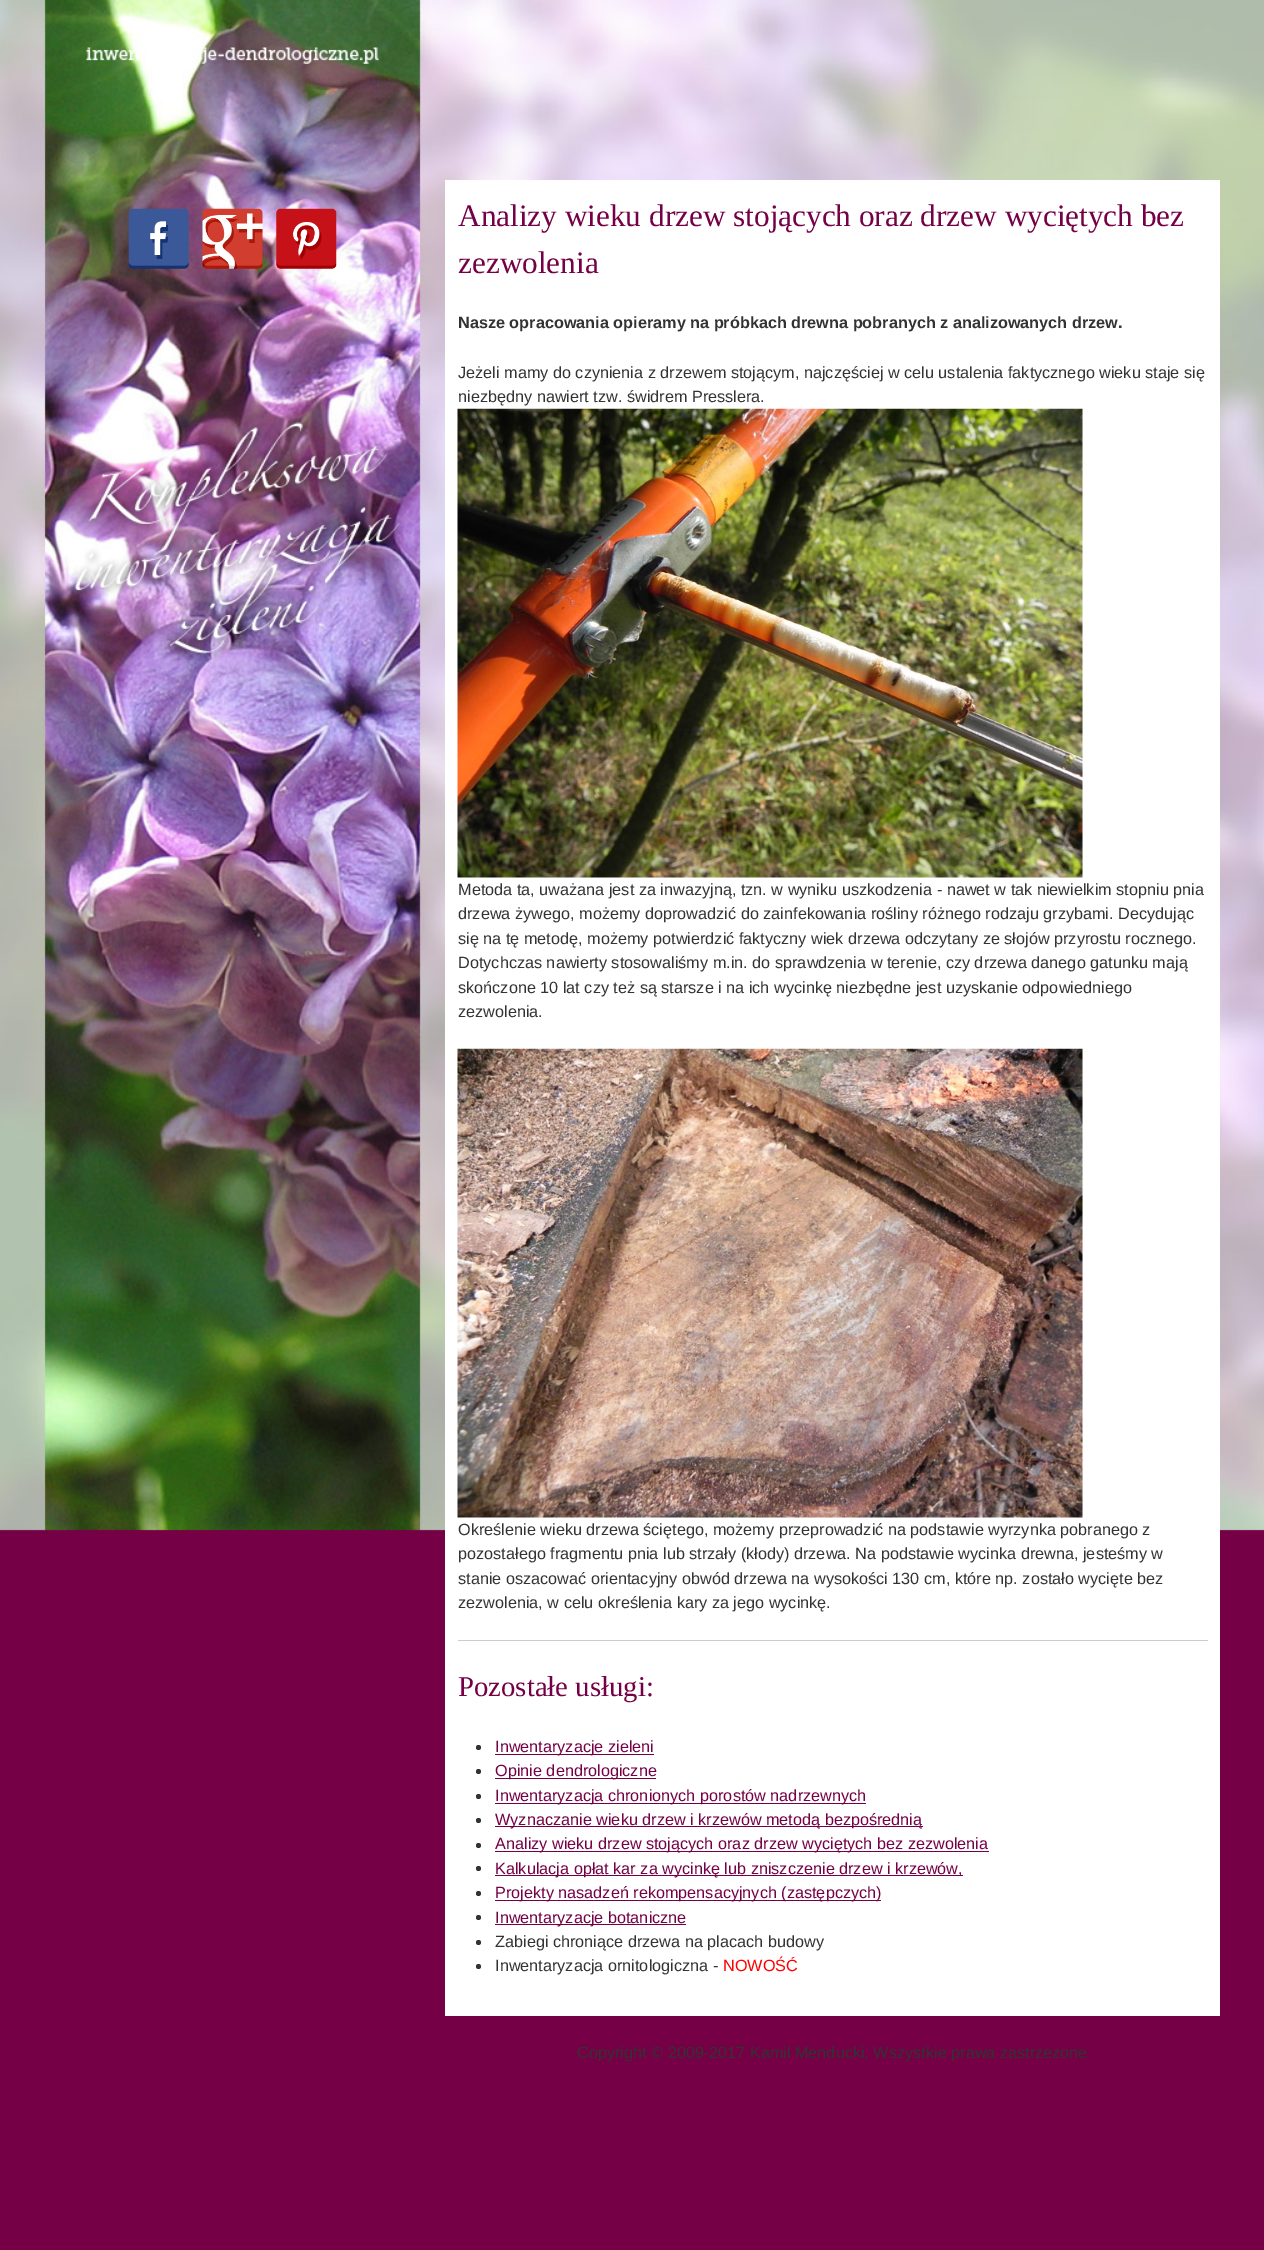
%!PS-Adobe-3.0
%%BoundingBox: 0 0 1264 2250
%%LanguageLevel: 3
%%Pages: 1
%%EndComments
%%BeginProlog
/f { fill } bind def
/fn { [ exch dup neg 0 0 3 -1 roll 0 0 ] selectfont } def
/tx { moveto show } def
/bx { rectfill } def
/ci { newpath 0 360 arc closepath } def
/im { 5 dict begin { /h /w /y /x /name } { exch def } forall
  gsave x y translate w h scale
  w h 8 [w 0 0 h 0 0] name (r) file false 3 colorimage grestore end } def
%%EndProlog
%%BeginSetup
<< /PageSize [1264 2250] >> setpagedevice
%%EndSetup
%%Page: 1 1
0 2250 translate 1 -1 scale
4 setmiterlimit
0.459 0 0.271 setrgbcolor
0 0 1264 2250 bx
(image0.raw) 0 0 1264 1531 im
(image1.raw) 86 47 293 17 im
(image2.raw) 128 208 61 61 im
(image3.raw) 202 208 61 61 im
(image4.raw) 276 208 61 61 im
(image5.raw) 71 419 333 242 im
1 setgray
445 180 775 1836 bx
/LiberationSerif-Regular 31.25 fn
0.459 0 0.271 setrgbcolor
(Analizy wieku drzew stojących oraz drzew wyciętych bez) 458 226 tx
(zezwolenia) 458 273 tx
/LiberationSans-Bold 16.25 fn
0.2 setgray
(Nasze opracowania opieramy na próbkach drewna pobranych z analizowanych drzew.) 458 328 tx
/LiberationSans-Regular 16.25 fn
(Jeżeli mamy do czynienia z drzewem stojącym, najczęściej w celu ustalenia faktycznego wieku staje się) 458 378 tx
(niezbędny nawiert tzw. świdrem Presslera.) 458 402 tx
(image6.raw) 457 408 626 470 im
(Metoda ta, uważana jest za inwazyjną, tzn. w wyniku uszkodzenia - nawet w tak niewielkim stopniu pnia) 458 895 tx
(drzewa żywego, możemy doprowadzić do zainfekowania rośliny różnego rodzaju grzybami. Decydując) 458 919 tx
(się na tę metodę, możemy potwierdzić faktyczny wiek drzewa odczytany ze słojów przyrostu rocznego.) 458 944 tx
(Dotychczas nawierty stosowaliśmy m.in. do sprawdzenia w terenie, czy drzewa danego gatunku mają) 458 968 tx
(skończone 10 lat czy też są starsze i na ich wycinkę niezbędne jest uzyskanie odpowiedniego) 458 993 tx
(zezwolenia.) 458 1017 tx
(image7.raw) 457 1048 626 470 im
(Określenie wieku drzewa ściętego, możemy przeprowadzić na podstawie wyrzynka pobranego z) 458 1535 tx
(pozostałego fragmentu pnia lub strzały \(kłody\) drzewa. Na podstawie wycinka drewna, jesteśmy w) 458 1559 tx
(stanie oszacować orientacyjny obwód drzewa na wysokości 130 cm, które np. zostało wycięte bez) 458 1584 tx
(zezwolenia, w celu określenia kary za jego wycinkę.) 458 1608 tx
0.8 setgray
458 1640 750 1 bx
/LiberationSerif-Regular 28.75 fn
0.459 0 0.271 setrgbcolor
(Pozostałe usługi:) 458 1696 tx
0.2 setgray
478.5 1747.5 2.5 ci f
0.459 0 0.271 setrgbcolor
495 1754 159 1 bx
/LiberationSans-Regular 16.25 fn
(Inwentaryzacje zieleni) 495 1752 tx
0.2 setgray
478.5 1771.5 2.5 ci f
0.459 0 0.271 setrgbcolor
495 1778 161 1 bx
(Opinie dendrologiczne) 495 1776 tx
0.2 setgray
478.5 1796.5 2.5 ci f
0.459 0 0.271 setrgbcolor
495 1803 371 1 bx
(Inwentaryzacja chronionych porostów nadrzewnych) 495 1801 tx
0.2 setgray
478.5 1820.5 2.5 ci f
0.459 0 0.271 setrgbcolor
495 1826 428 1 bx
(Wyznaczanie wieku drzew i krzewów metodą bezpośrednią) 495 1825 tx
0.2 setgray
478.5 1845.5 2.5 ci f
0.459 0 0.271 setrgbcolor
495 1851 494 1 bx
(Analizy wieku drzew stojących oraz drzew wyciętych bez zezwolenia) 495 1849 tx
0.2 setgray
478.5 1868.5 2.5 ci f
0.459 0 0.271 setrgbcolor
495 1875 468 1 bx
(Kalkulacja opłat kar za wycinkę lub zniszczenie drzew i krzewów,) 495 1874 tx
0.2 setgray
478.5 1893.5 2.5 ci f
0.459 0 0.271 setrgbcolor
495 1900 386 1 bx
(Projekty nasadzeń rekompensacyjnych \(zastępczych\)) 495 1898 tx
0.2 setgray
478.5 1917.5 2.5 ci f
0.459 0 0.271 setrgbcolor
495 1924 191 1 bx
(Inwentaryzacje botaniczne) 495 1923 tx
0.2 setgray
478.5 1942.5 2.5 ci f
(Zabiegi chroniące drzewa na placach budowy) 495 1947 tx
478.5 1966.5 2.5 ci f
(Inwentaryzacja ornitologiczna -) 495 1971 tx
1 0 0 setrgbcolor
(NOWOŚĆ) 723 1971 tx
0.2 setgray
(Copyright © 2009-2017 Kamil Menducki, Wszystkie prawa zastrzeżone) 577 2058 tx
showpage
%%EOF
